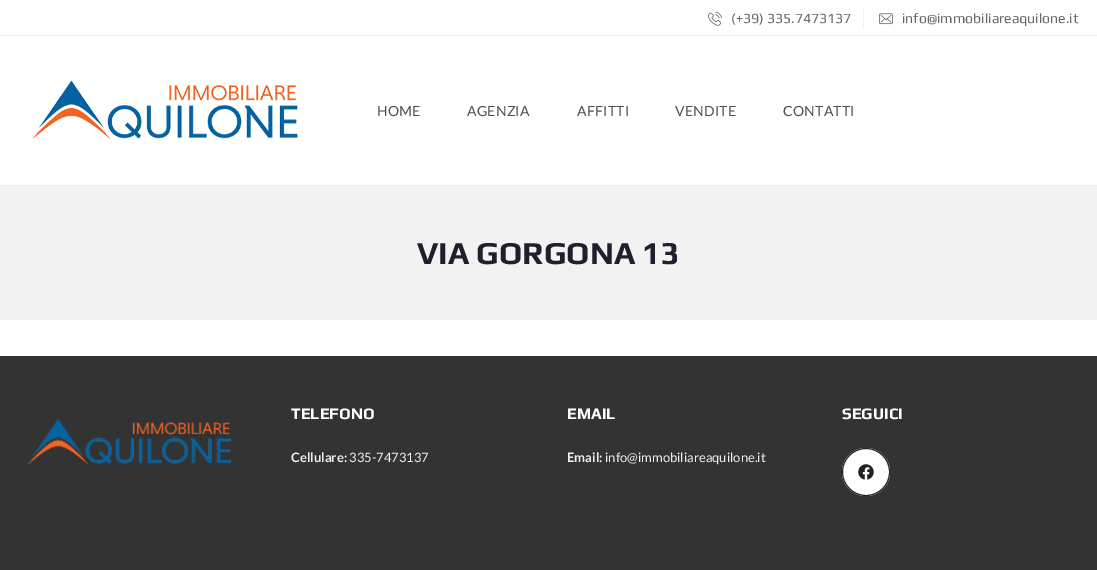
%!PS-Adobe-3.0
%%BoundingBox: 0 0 1097 570
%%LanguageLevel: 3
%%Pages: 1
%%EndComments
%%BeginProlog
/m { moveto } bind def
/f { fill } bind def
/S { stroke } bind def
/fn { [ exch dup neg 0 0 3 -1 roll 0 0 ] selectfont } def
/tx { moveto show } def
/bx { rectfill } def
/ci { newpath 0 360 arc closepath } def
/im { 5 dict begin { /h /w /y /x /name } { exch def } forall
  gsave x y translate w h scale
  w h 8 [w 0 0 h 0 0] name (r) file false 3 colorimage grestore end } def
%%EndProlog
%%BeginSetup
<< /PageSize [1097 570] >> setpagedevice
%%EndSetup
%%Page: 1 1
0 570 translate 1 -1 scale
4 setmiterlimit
1 setgray
0 0 1097 570 bx
0.941 setgray
0 35 1097 1 bx
(image0.raw) 708 11 14 15 im
/Play-Regular 14 fn
0.4 setgray
(\(+39\) 335.7473137) 731 23 tx
0.941 setgray
863 8 1 20 bx
(image1.raw) 879 13 14 12 im
0.4 setgray
(info@immobiliareaquilone.it) 902 23 tx
(image2.raw) 32 80 266 60 im
/Lato-Regular 14 fn
0.302 setgray
377 116 m 0.25 0 (HOME) ashow
467 116 m 0.25 0 (AGENZIA) ashow
577 116 m 0.25 0 (AFFITTI) ashow
675 116 m 0.25 0 (VENDITE) ashow
783 116 m 0.25 0 (CONTATTI) ashow
0.941 setgray
0 185 1097 1 bx
0.949 setgray
0 186 1097 134 bx
/Play-Bold 32 fn
0.137 0.118 0.18 setrgbcolor
(VIA GORGONA 13) 417 264 tx
0.2 setgray
0 356 1097 214 bx
/Play-Bold 16 fn
1 setgray
(TELEFONO) 291 419 tx
/Lato-Bold 13 fn
0.941 setgray
(Cellulare:) 291 462 tx
/Lato-Regular 13 fn
(335-7473137) 349 462 tx
/Play-Bold 16 fn
1 setgray
(EMAIL) 567 419 tx
/Lato-Bold 13 fn
0.941 setgray
(Email:) 567 462 tx
/Lato-Regular 13 fn
(info@immobiliareaquilone.it) 605 462 tx
/Play-Bold 16 fn
1 setgray
(SEGUICI) 842 419 tx
866 472 24 ci f
(image3.raw) 858 464 16 16 im
0.133 setgray
866 472 23.5 ci S
(image4.raw) 27 419 204 46 im
showpage
%%EOF
